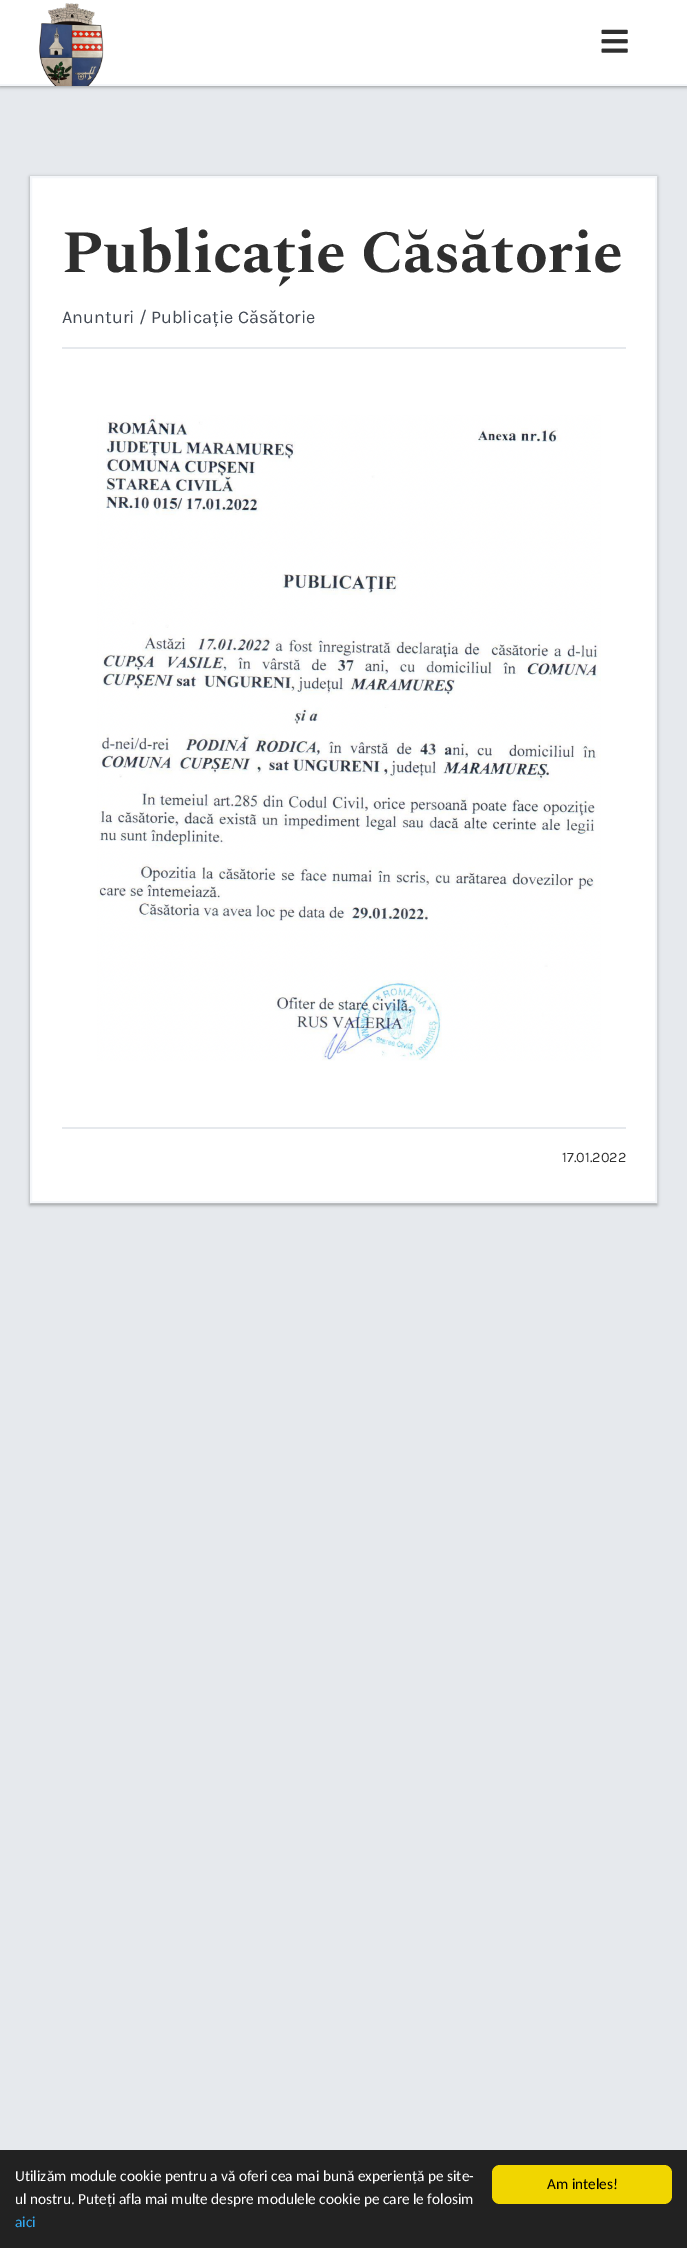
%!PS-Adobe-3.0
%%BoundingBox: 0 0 687 2248
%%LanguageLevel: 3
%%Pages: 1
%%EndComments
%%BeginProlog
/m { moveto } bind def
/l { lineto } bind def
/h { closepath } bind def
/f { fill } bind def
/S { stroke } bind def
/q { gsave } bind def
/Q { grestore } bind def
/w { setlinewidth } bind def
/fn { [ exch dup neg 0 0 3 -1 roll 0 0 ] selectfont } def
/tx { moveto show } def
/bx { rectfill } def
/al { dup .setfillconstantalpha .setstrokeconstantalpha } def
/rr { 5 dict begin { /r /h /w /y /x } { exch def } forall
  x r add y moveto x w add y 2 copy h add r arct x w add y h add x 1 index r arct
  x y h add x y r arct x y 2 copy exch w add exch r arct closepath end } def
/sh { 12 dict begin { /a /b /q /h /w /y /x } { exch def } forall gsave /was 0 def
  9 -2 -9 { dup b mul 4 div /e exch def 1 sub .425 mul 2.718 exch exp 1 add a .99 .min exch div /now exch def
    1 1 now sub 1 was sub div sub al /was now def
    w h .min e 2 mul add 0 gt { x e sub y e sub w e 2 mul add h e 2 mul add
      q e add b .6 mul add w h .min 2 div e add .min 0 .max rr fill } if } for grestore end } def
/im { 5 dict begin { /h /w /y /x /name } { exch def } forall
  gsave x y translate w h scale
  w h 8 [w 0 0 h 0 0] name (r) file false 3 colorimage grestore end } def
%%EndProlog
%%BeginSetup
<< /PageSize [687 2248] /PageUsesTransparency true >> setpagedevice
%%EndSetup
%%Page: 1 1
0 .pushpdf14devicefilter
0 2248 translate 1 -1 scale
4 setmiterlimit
0.902 0.914 0.929 setrgbcolor
0 0 687 2248 bx
0 setgray
0 2 687 85 0 1.5 0.24 sh
0 2 687 85 0 2 0.12 sh
1 setgray
0 0 687 84 bx
0.961 0.969 0.98 setrgbcolor
0 84 687 2 bx
(image0.raw) 39 3 65 83 im
(image1.raw) 601 29 27 24 im
0 setgray
30 177 627 1028 0 1.5 0.24 sh
30 177 627 1028 0 2 0.12 sh
1 setgray
31 177 m 656 177 l 656 1202 l 31 1202 l h q f Q
0.961 0.969 0.98 setrgbcolor
2 w
S
0.902 0.914 0.929 setrgbcolor
62 347 564 2 bx
/Spectral-Bold 60 fn
0.184 setgray
(Publicație Căsătorie) 62 272 tx
/Karla-Regular 18 fn
0.263 0.29 0.329 setrgbcolor
(Anunturi / Publicație Căsătorie) 62 323 tx
(image2.raw) 97 415 504 646 im
0.902 0.914 0.929 setrgbcolor
62 1127 564 2 bx
/Karla-Regular 14.5 fn
0.184 setgray
(17.01.2022) 562 1162 tx
0.133 setgray
0 2150 687 98 bx
/Carlito-Regular 15.3 fn
1 setgray
(Utilizăm module cookie pentru a vă oferi cea mai bună experiență pe site-) 15 2181 tx
(ul nostru. Puteți afla mai multe despre modulele cookie pe care le folosim) 15 2204 tx
0.192 0.659 0.941 setrgbcolor
(aici) 15 2227 tx
0.945 0.839 0 setrgbcolor
492 2165 180 39 8 rr f
0 setgray
(Am inteles!) 547 2189 tx
.poppdf14devicefilter showpage
%%EOF
